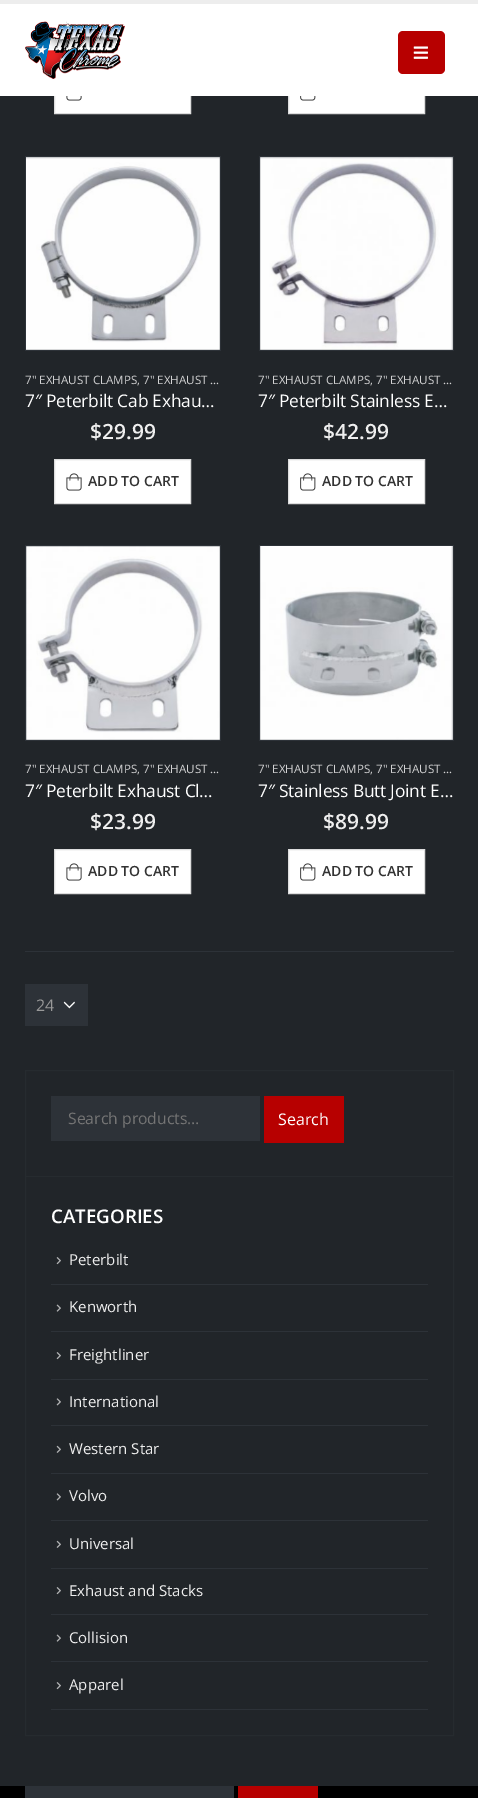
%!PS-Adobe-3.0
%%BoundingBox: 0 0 478 1798
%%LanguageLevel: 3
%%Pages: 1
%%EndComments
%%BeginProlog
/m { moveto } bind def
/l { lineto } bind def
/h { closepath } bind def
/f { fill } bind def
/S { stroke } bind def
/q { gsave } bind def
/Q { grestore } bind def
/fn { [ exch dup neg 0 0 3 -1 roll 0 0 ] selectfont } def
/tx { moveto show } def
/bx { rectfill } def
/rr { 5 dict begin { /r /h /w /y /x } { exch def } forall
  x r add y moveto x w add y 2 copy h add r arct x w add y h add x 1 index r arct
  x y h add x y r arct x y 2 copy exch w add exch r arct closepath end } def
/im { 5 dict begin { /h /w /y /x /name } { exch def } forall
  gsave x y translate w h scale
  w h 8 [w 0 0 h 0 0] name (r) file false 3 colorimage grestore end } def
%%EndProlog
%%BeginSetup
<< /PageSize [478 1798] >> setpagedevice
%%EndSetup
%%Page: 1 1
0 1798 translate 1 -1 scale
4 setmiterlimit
0 setgray
0 0 478 1798 bx
0.129 0.145 0.161 setrgbcolor
0 96 478 1690 bx
1 setgray
55 96 135 17 bx
0.867 setgray
54.5 69.5 136 44 rectstroke
1 setgray
289 96 135 17 bx
0.867 setgray
288.5 69.5 136 44 rectstroke
1 setgray
0 4 478 92 bx
0.929 setgray
0 0 478 4 bx
(image0.raw) 25 21 100 58 im
0.718 0 0 setrgbcolor
398 31 47 43 5 rr f
(image1.raw) 413 46 15 13 im
(image2.raw) 66 96 16 5 im
(image3.raw) 300 96 16 5 im
0.176 0.196 0.22 setrgbcolor
25 156 196 195 bx
(image4.raw) 26 157 194 193 im
/OpenSans-Regular 11.6 fn
0.827 0.827 0.831 setrgbcolor
(7" EXHAUST CLAMPS, 7" EXHAUST …) 25 384 tx
/OpenSans-Regular 17.4 fn
1 setgray
25 407 m -0.2 0 (7″ Peterbilt Cab Exhau…) ashow
/OpenSans-SemiBold 21 fn
0.933 setgray
($29.99) 90 439 tx
1 setgray
54.5 459.5 m 190.5 459.5 l 190.5 503.5 l 54.5 503.5 l h q f Q
0.867 setgray
S
(image5.raw) 66 473 16 18 im
/OpenSans-SemiBold 14 fn
0.2 setgray
(ADD TO CART) 88 486 tx
0.176 0.196 0.22 setrgbcolor
259 156 195 195 bx
(image6.raw) 260 157 193 193 im
/OpenSans-Regular 11.6 fn
0.827 0.827 0.831 setrgbcolor
(7" EXHAUST CLAMPS, 7" EXHAUST …) 258 384 tx
/OpenSans-Regular 17.4 fn
1 setgray
258 407 m -0.2 0 (7″ Peterbilt Stainless E…) ashow
/OpenSans-SemiBold 21 fn
0.933 setgray
($42.99) 323 439 tx
1 setgray
288.5 459.5 m 424.5 459.5 l 424.5 503.5 l 288.5 503.5 l h q f Q
0.867 setgray
S
(image7.raw) 300 473 16 18 im
/OpenSans-SemiBold 14 fn
0.2 setgray
(ADD TO CART) 322 486 tx
0.176 0.196 0.22 setrgbcolor
25 545 196 196 bx
(image8.raw) 26 546 194 194 im
/OpenSans-Regular 11.6 fn
0.827 0.827 0.831 setrgbcolor
(7" EXHAUST CLAMPS, 7" EXHAUST …) 25 773 tx
/OpenSans-Regular 17.4 fn
1 setgray
25 797 m -0.2 0 (7″ Peterbilt Exhaust Cl…) ashow
/OpenSans-SemiBold 21 fn
0.933 setgray
($23.99) 90 829 tx
1 setgray
54.5 849.5 m 190.5 849.5 l 190.5 893.5 l 54.5 893.5 l h q f Q
0.867 setgray
S
(image5.raw) 66 863 16 18 im
/OpenSans-SemiBold 14 fn
0.2 setgray
(ADD TO CART) 88 876 tx
0.176 0.196 0.22 setrgbcolor
259 545 195 196 bx
(image9.raw) 260 546 193 194 im
/OpenSans-Regular 11.6 fn
0.827 0.827 0.831 setrgbcolor
(7" EXHAUST CLAMPS, 7" EXHAUST …) 258 773 tx
/OpenSans-Regular 17.4 fn
1 setgray
258 797 m -0.2 0 (7″ Stainless Butt Joint E…) ashow
/OpenSans-SemiBold 21 fn
0.933 setgray
($89.99) 323 829 tx
1 setgray
288.5 849.5 m 424.5 849.5 l 424.5 893.5 l 288.5 893.5 l h q f Q
0.867 setgray
S
(image7.raw) 300 863 16 18 im
/OpenSans-SemiBold 14 fn
0.2 setgray
(ADD TO CART) 322 876 tx
0.176 0.196 0.22 setrgbcolor
25 951 429 1 bx
25 984 63 42 bx
(image10.raw) 63 1001 12 8 im
/OpenSans-Regular 16 fn
0.6 setgray
(24) 36 1011 tx
0.149 0.169 0.184 setrgbcolor
25.5 1070.5 428 665 rectstroke
26 1176 427 1 bx
0.176 0.196 0.22 setrgbcolor
51 1096 209 45 bx
/OpenSans-Regular 15.75 fn
0.459 setgray
(Search products…) 68 1124 tx
0.718 0 0 setrgbcolor
264 1096 80 47 bx
/OpenSans-Regular 16 fn
1 setgray
(Search) 278 1125 tx
/OpenSans-SemiBold 18.75 fn
(CATEGORIES) 51 1223 tx
0.176 0.196 0.22 setrgbcolor
51 1709 377 1 bx
(image11.raw) 56 1257 5 8 im
/OpenSans-Regular 15 fn
0.933 setgray
(Peterbilt) 69 1265 tx
0.176 0.196 0.22 setrgbcolor
51 1284 377 1 bx
(image12.raw) 56 1304 5 8 im
0.933 setgray
(Kenworth) 69 1312 tx
0.176 0.196 0.22 setrgbcolor
51 1331 377 1 bx
(image11.raw) 56 1352 5 8 im
0.933 setgray
(Freightliner) 69 1360 tx
0.176 0.196 0.22 setrgbcolor
51 1379 377 1 bx
(image13.raw) 56 1398 5 8 im
0.933 setgray
(International) 69 1407 tx
0.176 0.196 0.22 setrgbcolor
51 1425 377 1 bx
(image14.raw) 56 1445 5 8 im
0.933 setgray
(Western Star) 69 1454 tx
0.176 0.196 0.22 setrgbcolor
51 1473 377 1 bx
(image13.raw) 56 1493 5 8 im
0.933 setgray
(Volvo) 69 1501 tx
0.176 0.196 0.22 setrgbcolor
51 1520 377 1 bx
(image14.raw) 56 1540 5 8 im
0.933 setgray
(Universal) 69 1549 tx
0.176 0.196 0.22 setrgbcolor
51 1568 377 1 bx
(image11.raw) 56 1587 5 8 im
0.933 setgray
(Exhaust and Stacks) 69 1596 tx
0.176 0.196 0.22 setrgbcolor
51 1614 377 1 bx
(image12.raw) 56 1634 5 8 im
0.933 setgray
(Collision) 69 1643 tx
0.176 0.196 0.22 setrgbcolor
51 1661 377 1 bx
(image11.raw) 56 1682 5 8 im
0.933 setgray
(Apparel) 69 1690 tx
0.176 0.196 0.22 setrgbcolor
25 1786 209 12 bx
0.718 0 0 setrgbcolor
238 1786 80 12 bx
showpage
%%EOF
